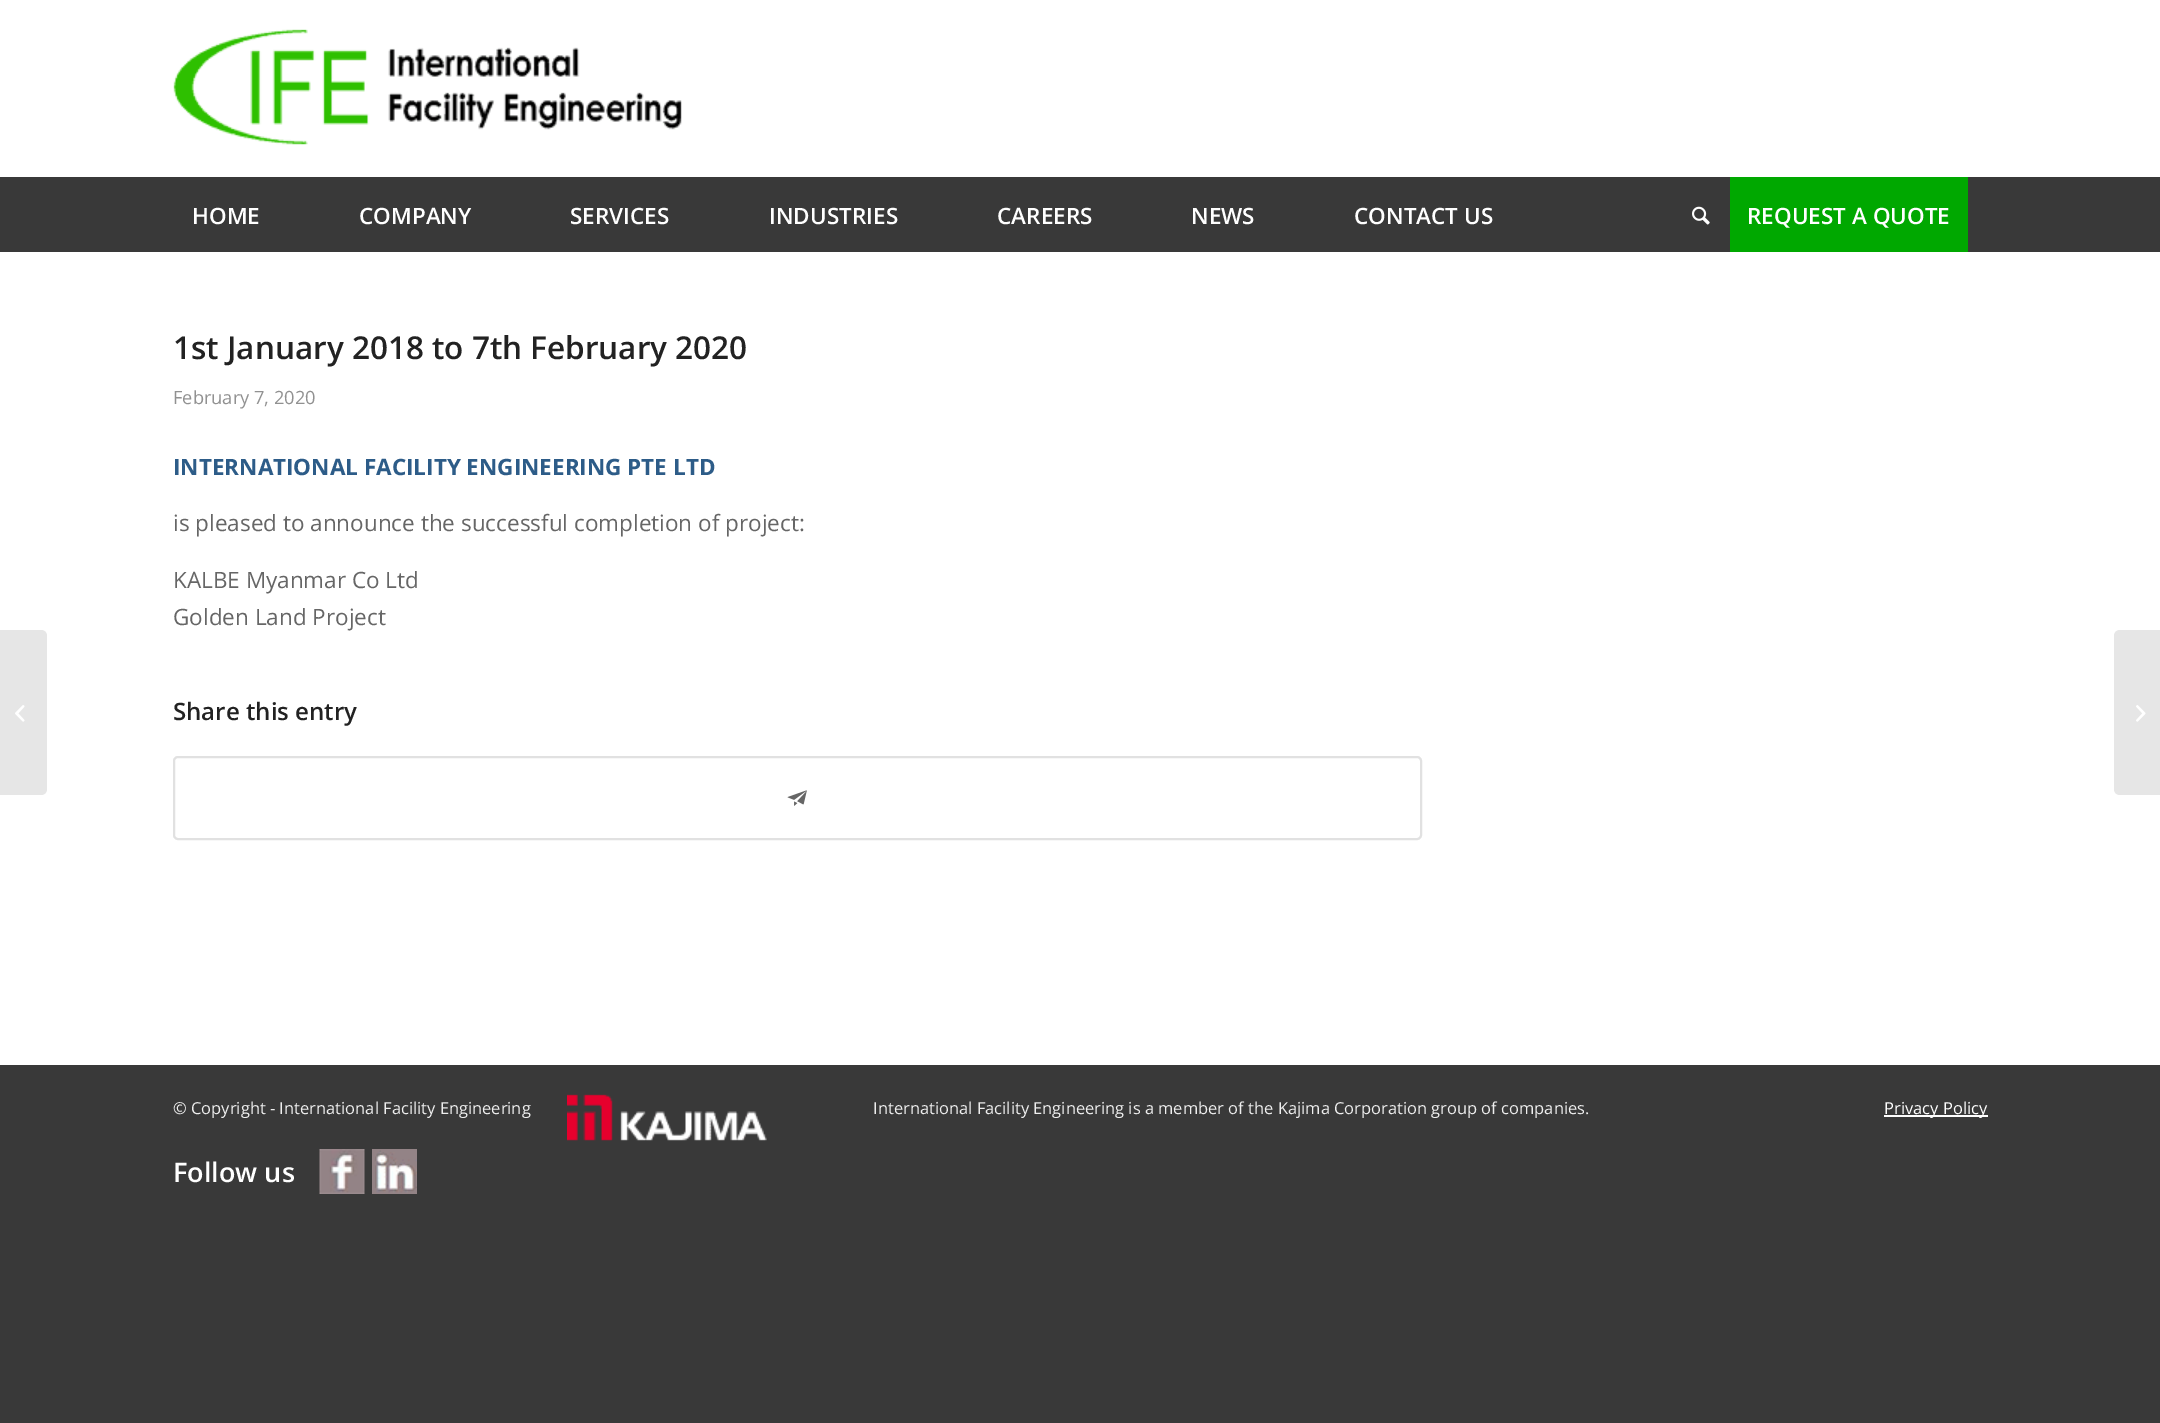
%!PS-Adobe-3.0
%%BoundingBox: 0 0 2160 1423
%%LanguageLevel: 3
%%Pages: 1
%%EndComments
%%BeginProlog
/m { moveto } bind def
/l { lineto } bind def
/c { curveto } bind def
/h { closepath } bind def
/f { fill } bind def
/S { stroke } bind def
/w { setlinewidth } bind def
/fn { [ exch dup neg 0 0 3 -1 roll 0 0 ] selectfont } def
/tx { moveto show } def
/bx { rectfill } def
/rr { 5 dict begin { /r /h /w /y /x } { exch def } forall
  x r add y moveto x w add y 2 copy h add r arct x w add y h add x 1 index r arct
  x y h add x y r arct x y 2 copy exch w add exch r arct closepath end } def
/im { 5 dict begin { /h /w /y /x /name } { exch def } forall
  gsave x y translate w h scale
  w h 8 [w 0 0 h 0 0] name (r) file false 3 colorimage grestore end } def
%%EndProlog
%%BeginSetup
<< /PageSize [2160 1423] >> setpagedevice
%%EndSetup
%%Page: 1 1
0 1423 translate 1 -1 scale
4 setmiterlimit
0.224 setgray
0 0 2160 1423 bx
1 setgray
0 0 2160 1065 bx
(image0.raw) 173 29 509 116 im
0.224 setgray
0 177 2160 75 bx
/OpenSans-SemiBold 22.5 fn
1 setgray
(HOME) 192 224 tx
(COMPANY) 359 224 tx
(SERVICES) 570 224 tx
(INDUSTRIES) 769 224 tx
(CAREERS) 997 224 tx
(NEWS) 1191 224 tx
(CONTACT US) 1354 224 tx
(image1.raw) 1692 206 18 19 im
0 0.659 0 setrgbcolor
1730 177 238 75 bx
1 setgray
(REQUEST A QUOTE) 1747 224 tx
0.902 setgray
0 630 m 41 630 l 44.5 630 47 632.5 47 636 c 47 789 l 47 792.5 44.5 795 41 795 c 0 795 l h f
(image2.raw) 15 705 10 17 im
/OpenSans-SemiBold 31.5 fn
0.133 setgray
(1st January 2018 to 7th February 2020) 173 359 tx
/OpenSans-Regular 18.25 fn
0.569 setgray
(February 7, 2020) 173 404 tx
/OpenSans-Bold 22.5 fn
0.176 0.361 0.533 setrgbcolor
(INTERNATIONAL FACILITY ENGINEERING PTE LTD) 173 475 tx
/OpenSans-Regular 22.5 fn
0.4 setgray
(is pleased to announce the successful completion of project:) 173 531 tx
(KALBE Myanmar Co Ltd) 173 588 tx
(Golden Land Project) 173 625 tx
/OpenSans-SemiBold 24 fn
0.133 setgray
(Share this entry) 173 720 tx
0.882 setgray
2 w
174 757 1247 82 4 rr S
(image3.raw) 787 790 20 16 im
/OpenSans-Regular 16.5 fn
0.933 setgray
(© Copyright - International Facility Engineering) 173 1114 tx
(image4.raw) 567 1094 200 47 im
(International Facility Engineering is a member of the Kajima Corporation group of companies.) 873 1114 tx
1 setgray
1884 1115 104 2 bx
(Privacy Policy) 1884 1114 tx
/OpenSans-SemiBold 27 fn
(Follow us) 173 1182 tx
(image5.raw) 319 1149 46 45 im
(image6.raw) 372 1149 45 45 im
0.902 setgray
2120 630 m 2160 630 l 2160 795 l 2120 795 l 2116.5 795 2114 792.5 2114 789 c 2114 636 l 2114 632.5 2116.5 630 2120 630 c h f
(image7.raw) 2136 705 10 17 im
showpage
%%EOF
